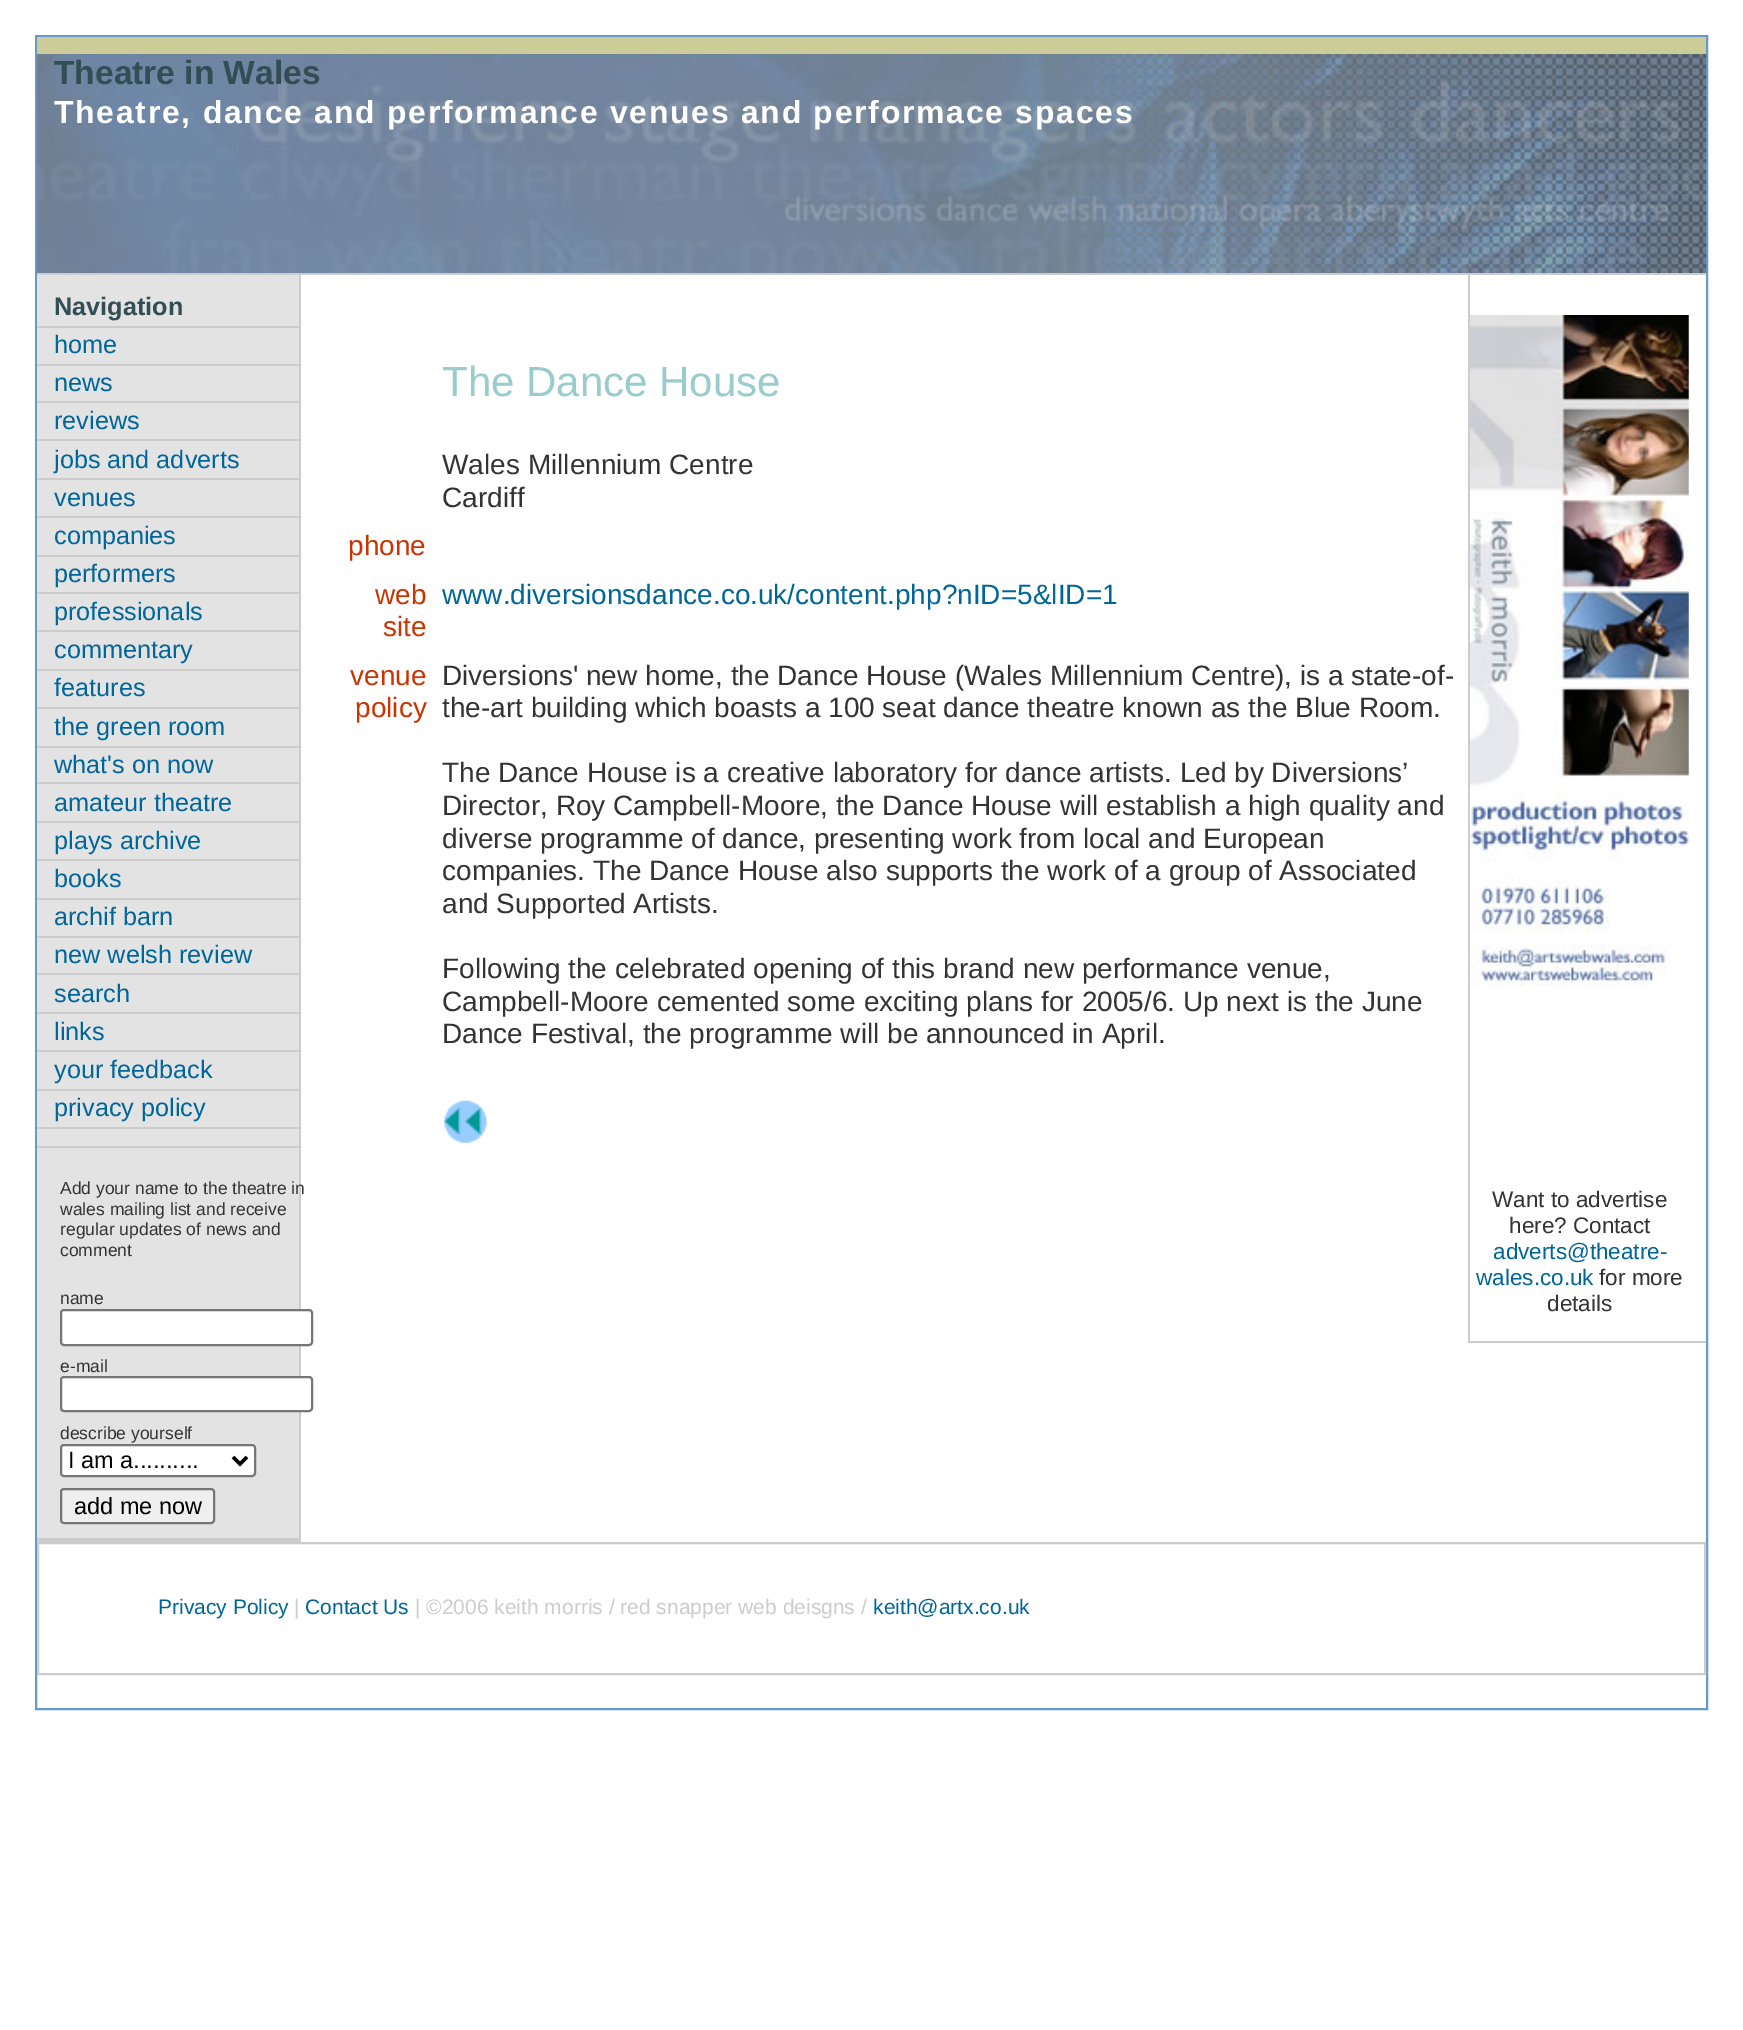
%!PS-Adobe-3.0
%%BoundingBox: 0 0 1743 2030
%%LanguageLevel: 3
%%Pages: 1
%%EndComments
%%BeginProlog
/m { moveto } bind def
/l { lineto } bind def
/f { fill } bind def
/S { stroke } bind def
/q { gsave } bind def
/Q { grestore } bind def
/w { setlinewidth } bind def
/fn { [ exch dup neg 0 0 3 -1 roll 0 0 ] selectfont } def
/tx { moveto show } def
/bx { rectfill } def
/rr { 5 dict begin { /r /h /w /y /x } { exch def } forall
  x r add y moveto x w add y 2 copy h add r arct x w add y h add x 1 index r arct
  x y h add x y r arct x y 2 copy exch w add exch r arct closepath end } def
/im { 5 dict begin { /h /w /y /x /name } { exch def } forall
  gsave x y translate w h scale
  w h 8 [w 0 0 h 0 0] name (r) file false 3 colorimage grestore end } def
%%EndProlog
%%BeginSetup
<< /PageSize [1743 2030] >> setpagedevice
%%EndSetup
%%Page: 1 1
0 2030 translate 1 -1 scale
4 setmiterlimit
1 setgray
0 0 1743 2030 bx
0.4 0.6 0.8 setrgbcolor
2 w
36 36 1671 1673 rectstroke
(image0.raw) 36 54 1671 219 im
0.8 0.8 0.6 setrgbcolor
37 37 1669 17 bx
0.8 setgray
37 273 1669 2 bx
/LiberationSans-Bold 33.5 fn
0.2 0.302 0.333 setrgbcolor
(Theatre in Wales) 54 84 tx
/LiberationSans-Bold 31.9 fn
1 setgray
54 123 m 1.75 0 (Theatre, dance and performance venues and performace spaces) ashow
0.89 setgray
37 275 262 1263 bx
0.8 setgray
299 275 2 1267 bx
37 1540 264 2 bx
37 1127 262 2 bx
/LiberationSans-Bold 25.25 fn
0.2 0.302 0.333 setrgbcolor
(Navigation) 54 315 tx
0.8 setgray
37 326 262 2 bx
/LiberationSans-Regular 25.25 fn
0 0.4 0.6 setrgbcolor
(home) 54 353 tx
0.8 setgray
37 364 262 2 bx
0 0.4 0.6 setrgbcolor
(news) 54 391 tx
0.8 setgray
37 401 262 2 bx
0 0.4 0.6 setrgbcolor
(reviews) 54 429 tx
0.8 setgray
37 439 262 2 bx
0 0.4 0.6 setrgbcolor
(jobs and adverts) 54 468 tx
0.8 setgray
37 478 262 2 bx
0 0.4 0.6 setrgbcolor
(venues) 54 506 tx
0.8 setgray
37 516 262 2 bx
0 0.4 0.6 setrgbcolor
(companies) 54 544 tx
0.8 setgray
37 555 262 2 bx
0 0.4 0.6 setrgbcolor
(performers) 54 582 tx
0.8 setgray
37 592 262 2 bx
0 0.4 0.6 setrgbcolor
(professionals) 54 620 tx
0.8 setgray
37 630 262 2 bx
0 0.4 0.6 setrgbcolor
(commentary) 54 658 tx
0.8 setgray
37 669 262 2 bx
0 0.4 0.6 setrgbcolor
(features) 54 696 tx
0.8 setgray
37 707 262 2 bx
0 0.4 0.6 setrgbcolor
(the green room) 54 735 tx
0.8 setgray
37 746 262 2 bx
0 0.4 0.6 setrgbcolor
(what's on now) 54 773 tx
0.8 setgray
37 782 262 2 bx
0 0.4 0.6 setrgbcolor
(amateur theatre) 54 811 tx
0.8 setgray
37 821 262 2 bx
0 0.4 0.6 setrgbcolor
(plays archive) 54 849 tx
0.8 setgray
37 859 262 2 bx
0 0.4 0.6 setrgbcolor
(books) 54 887 tx
0.8 setgray
37 898 262 2 bx
0 0.4 0.6 setrgbcolor
(archif barn) 54 925 tx
0.8 setgray
37 936 262 2 bx
0 0.4 0.6 setrgbcolor
(new welsh review) 54 963 tx
0.8 setgray
37 973 262 2 bx
0 0.4 0.6 setrgbcolor
(search) 54 1002 tx
0.8 setgray
37 1012 262 2 bx
0 0.4 0.6 setrgbcolor
(links) 54 1040 tx
0.8 setgray
37 1050 262 2 bx
0 0.4 0.6 setrgbcolor
(your feedback) 54 1078 tx
0.8 setgray
37 1089 262 2 bx
0 0.4 0.6 setrgbcolor
(privacy policy) 54 1116 tx
0.8 setgray
37 1146 262 2 bx
37 1538 262 2 bx
/LiberationSans-Regular 17.5 fn
0.2 setgray
(Add your name to the theatre in) 60 1194 tx
(wales mailing list and receive) 60 1215 tx
(regular updates of news and) 60 1235 tx
(comment) 60 1256 tx
(name) 60 1304 tx
1 setgray
61 1310 251 35 3 rr q f Q
0.463 setgray
S
0.2 setgray
(e-mail) 60 1372 tx
1 setgray
61 1377 251 34 3 rr q f Q
0.463 setgray
S
0.2 setgray
(describe yourself) 60 1439 tx
1 setgray
61 1445 194 31 3 rr q f Q
0.463 setgray
S
0 setgray
3.5 w
233 1457 m 240 1464 l 247 1457 l S
/LiberationSans-Regular 23.5 fn
(I am a..........) 68 1468 tx
0.937 setgray
61 1489 153 34 3 rr q f Q
0.463 setgray
2 w
S
0 setgray
(add me now) 74 1514 tx
/LiberationSans-Regular 42 fn
0.6 0.8 0.8 setrgbcolor
(The Dance House) 442 396 tx
/LiberationSans-Regular 28 fn
0.2 setgray
(Wales Millennium Centre) 442 474 tx
(Cardiff) 442 507 tx
0.8 0.2 0 setrgbcolor
(phone) 348 555 tx
(web) 375 604 tx
(site) 383 636 tx
0 0.4 0.6 setrgbcolor
(www.diversionsdance.co.uk/content.php?nID=5&lID=1) 442 604 tx
0.8 0.2 0 setrgbcolor
(venue) 350 685 tx
(policy) 355 717 tx
0.2 setgray
(Diversions' new home, the Dance House \(Wales Millennium Centre\), is a state-of-) 442 685 tx
(the-art building which boasts a 100 seat dance theatre known as the Blue Room.) 442 717 tx
(The Dance House is a creative laboratory for dance artists. Led by Diversions’) 442 782 tx
(Director, Roy Campbell-Moore, the Dance House will establish a high quality and) 442 815 tx
(diverse programme of dance, presenting work from local and European) 442 848 tx
(companies. The Dance House also supports the work of a group of Associated) 442 880 tx
(and Supported Artists.) 442 913 tx
(Following the celebrated opening of this brand new performance venue,) 442 978 tx
(Campbell-Moore cemented some exciting plans for 2005/6. Up next is the June) 442 1011 tx
(Dance Festival, the programme will be announced in April.) 442 1043 tx
(image1.raw) 444 1100 43 44 im
0.8 setgray
1468 1341 238 2 bx
1468 275 2 1067 bx
(image2.raw) 1470 315 219 672 im
/LiberationSans-Regular 22.5 fn
0.2 setgray
(Want to advertise) 1492 1207 tx
(here? Contact) 1509 1233 tx
0 0.4 0.6 setrgbcolor
(adverts@theatre-) 1493 1259 tx
(wales.co.uk) 1476 1285 tx
0.2 setgray
(for more) 1599 1285 tx
(details) 1547 1311 tx
0.8 setgray
38 1543 1667 131 rectstroke
/LiberationSans-Regular 21 fn
0 0.4 0.6 setrgbcolor
(Privacy Policy) 158 1614 tx
0.8 setgray
(|) 294 1614 tx
0 0.4 0.6 setrgbcolor
(Contact Us) 305 1614 tx
0.8 setgray
(| ©2006 keith morris / red snapper web deisgns /) 415 1614 tx
0 0.4 0.6 setrgbcolor
(keith@artx.co.uk) 873 1614 tx
showpage
%%EOF
